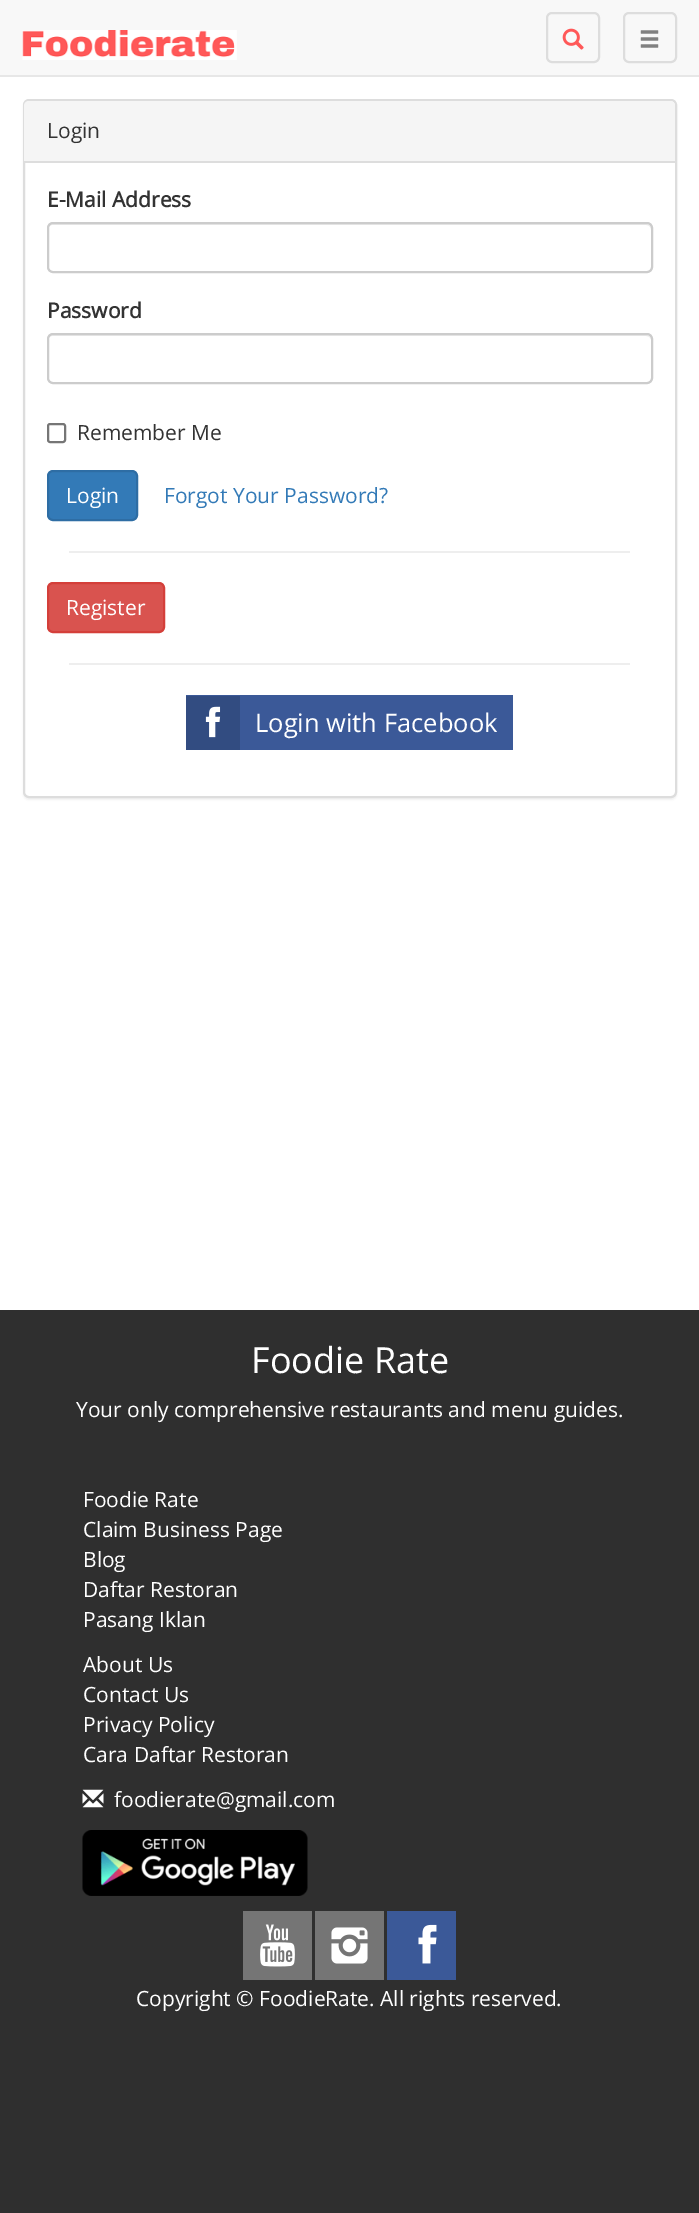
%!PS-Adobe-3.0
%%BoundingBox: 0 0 699 2213
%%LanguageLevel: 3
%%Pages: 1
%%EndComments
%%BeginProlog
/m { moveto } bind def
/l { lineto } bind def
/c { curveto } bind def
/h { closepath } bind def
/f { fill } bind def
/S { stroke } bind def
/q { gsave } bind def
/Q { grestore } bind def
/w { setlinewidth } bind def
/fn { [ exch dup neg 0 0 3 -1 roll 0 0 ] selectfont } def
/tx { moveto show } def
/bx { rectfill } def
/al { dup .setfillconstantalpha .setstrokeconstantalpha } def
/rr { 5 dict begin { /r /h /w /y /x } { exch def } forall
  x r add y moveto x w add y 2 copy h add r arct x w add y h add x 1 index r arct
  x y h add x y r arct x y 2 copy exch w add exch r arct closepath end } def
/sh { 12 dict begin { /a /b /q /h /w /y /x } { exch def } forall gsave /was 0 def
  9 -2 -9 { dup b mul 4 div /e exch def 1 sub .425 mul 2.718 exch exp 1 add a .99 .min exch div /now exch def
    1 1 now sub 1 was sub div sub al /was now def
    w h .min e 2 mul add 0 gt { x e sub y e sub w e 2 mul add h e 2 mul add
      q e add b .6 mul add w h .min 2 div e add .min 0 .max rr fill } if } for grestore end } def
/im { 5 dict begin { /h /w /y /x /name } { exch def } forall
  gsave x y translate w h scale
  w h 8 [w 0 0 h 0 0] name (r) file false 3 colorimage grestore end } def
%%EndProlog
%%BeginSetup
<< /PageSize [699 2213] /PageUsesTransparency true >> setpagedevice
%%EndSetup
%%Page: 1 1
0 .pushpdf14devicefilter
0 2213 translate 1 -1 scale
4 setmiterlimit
1 setgray
0 0 699 2213 bx
0.973 setgray
0 0 699 75 bx
0.906 setgray
0 75 699 2 bx
(image0.raw) 22 30 215 30 im
0.867 setgray
2 w
547 13 52 49 5 rr S
(image1.raw) 562 28 22 22 im
624 13 52 49 5 rr S
(image2.raw) 640 30 19 18 im
0 setgray
23 101 654 699 6 1 0.05 sh
1 setgray
24 100 652 697 5 rr q f Q
0.867 setgray
S
0.961 setgray
29 101 m 670 101 l 673 101 675 103 675 106 c 675 162 l 24 162 l 24 106 l 24 103 26 101 29 101 c h f
0.867 setgray
24 161 651 2 bx
/OpenSans-Regular 21 fn
0.2 setgray
(Login) 47 138 tx
/OpenSans-Bold 21 fn
(E-Mail Address) 47 207 tx
0.925 setgray
52 225 m 646 225 l 649 225 651 227 651 230 c 651 229 l 651 226 649 224 646 224 c 53 224 l 50 224 48 226 48 229 c 48 230 l 48 227 50 225 52 225 c h f
0.8 setgray
48 223 604 49 5 rr S
0.2 setgray
(Password) 47 318 tx
0.925 setgray
52 336 m 646 336 l 649 336 651 338 651 340 c 651 337 649 335 646 335 c 53 335 l 50 335 48 337 48 340 c 48 338 50 336 52 336 c h f
0.8 setgray
48 334 604 49 5 rr S
0.463 setgray
48 424 17 18 2 rr S
/OpenSans-Regular 21 fn
0.2 setgray
(Remember Me) 77 440 tx
0.2 0.478 0.718 setrgbcolor
48 471 89 49 5 rr q f Q
0.18 0.427 0.643 setrgbcolor
S
1 setgray
(Login) 66 503 tx
0.2 0.478 0.718 setrgbcolor
(Forgot Your Password?) 164 503 tx
0.933 setgray
69 551 561 2 bx
0.851 0.325 0.31 setrgbcolor
48 583 116 49 5 rr q f Q
0.831 0.247 0.227 setrgbcolor
S
1 setgray
(Register) 66 615 tx
0.933 setgray
69 663 561 2 bx
0.231 0.349 0.596 setrgbcolor
186 695 327 55 bx
0.196 0.298 0.506 setrgbcolor
186 696 54 54 bx
(image3.raw) 205 706 16 32 im
/OpenSans-Regular 25.5 fn
1 setgray
(Login with Facebook) 255 732 tx
0.184 setgray
0 1310 699 903 bx
/OpenSans-Regular 36 fn
1 setgray
(Foodie Rate) 251 1373 tx
/OpenSans-Regular 21 fn
(Your only comprehensive restaurants and menu guides.) 76 1417 tx
(Foodie Rate) 83 1507 tx
(Claim Business Page) 83 1537 tx
(Blog) 83 1567 tx
(Daftar Restoran) 83 1597 tx
(Pasang Iklan) 83 1627 tx
(About Us) 83 1672 tx
(Contact Us) 83 1702 tx
(Privacy Policy) 83 1732 tx
(Cara Daftar Restoran) 83 1762 tx
(image4.raw) 82 1789 22 19 im
(foodierate@gmail.com) 114 1807 tx
(image5.raw) 82 1830 226 66 im
0.459 setgray
243 1911 69 69 bx
(image6.raw) 260 1924 35 43 im
315 1911 69 69 bx
(image7.raw) 331 1927 37 37 im
0.231 0.349 0.596 setrgbcolor
387 1911 69 69 bx
(image8.raw) 418 1924 19 40 im
1 setgray
(Copyright © FoodieRate. All rights reserved.) 136 2006 tx
.poppdf14devicefilter showpage
%%EOF
